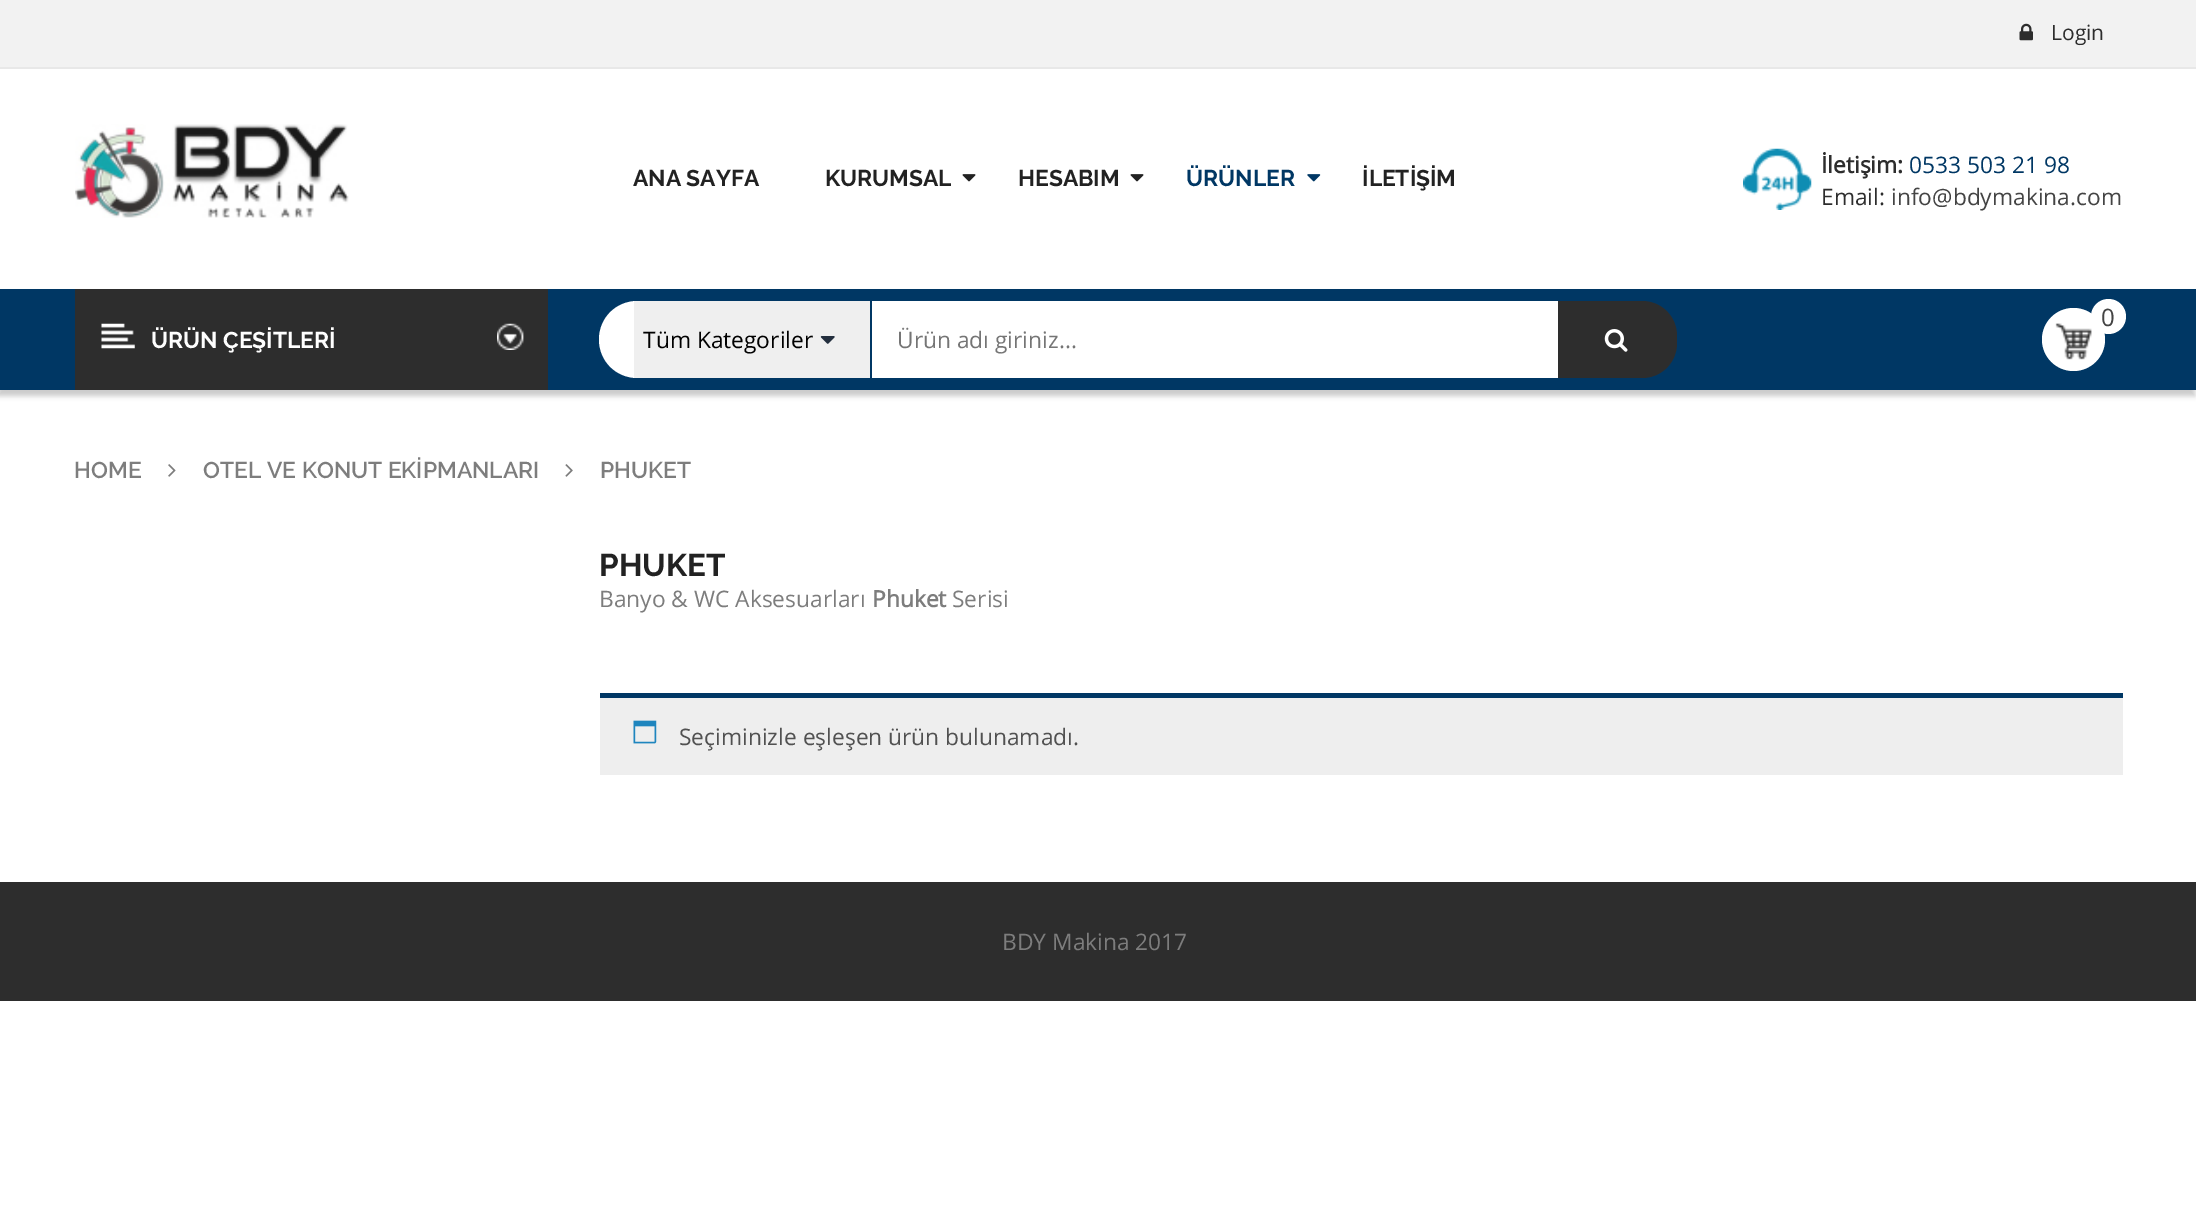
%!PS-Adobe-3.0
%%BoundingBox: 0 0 2196 1225
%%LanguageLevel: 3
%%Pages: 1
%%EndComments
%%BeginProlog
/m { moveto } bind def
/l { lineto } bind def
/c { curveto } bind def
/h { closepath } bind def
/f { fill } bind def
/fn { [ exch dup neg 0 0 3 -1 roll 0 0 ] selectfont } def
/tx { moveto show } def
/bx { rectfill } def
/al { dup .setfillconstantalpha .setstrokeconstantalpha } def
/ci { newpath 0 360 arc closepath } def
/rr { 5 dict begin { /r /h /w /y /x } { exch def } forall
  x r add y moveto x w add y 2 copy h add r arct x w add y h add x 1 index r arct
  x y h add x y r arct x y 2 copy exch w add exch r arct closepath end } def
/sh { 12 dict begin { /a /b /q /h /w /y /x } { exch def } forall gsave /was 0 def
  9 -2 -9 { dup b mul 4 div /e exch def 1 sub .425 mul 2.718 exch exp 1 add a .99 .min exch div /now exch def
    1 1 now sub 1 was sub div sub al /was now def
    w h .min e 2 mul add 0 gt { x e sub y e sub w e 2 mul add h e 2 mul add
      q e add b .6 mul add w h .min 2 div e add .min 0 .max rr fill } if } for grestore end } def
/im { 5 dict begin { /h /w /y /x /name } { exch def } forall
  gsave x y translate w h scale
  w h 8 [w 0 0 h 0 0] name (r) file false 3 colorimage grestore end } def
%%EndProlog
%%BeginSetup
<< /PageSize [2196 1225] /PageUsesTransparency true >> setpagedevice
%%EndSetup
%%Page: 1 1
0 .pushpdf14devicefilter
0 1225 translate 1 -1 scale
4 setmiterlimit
1 setgray
0 0 2196 1225 bx
0.949 setgray
0 0 2196 67 bx
0.91 setgray
0 67 2196 2 bx
(image0.raw) 2019 23 14 18 im
/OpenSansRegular-Regular 21 fn
0.176 setgray
(Login) 2051 40 tx
(image1.raw) 75 124 274 94 im
/Raleway-Bold 22.75 fn
0.133 setgray
(ANA SAYFA) 633 186 tx
(KURUMSAL) 825 186 tx
(image2.raw) 962 174 14 8 im
(HESABIM) 1018 186 tx
(image2.raw) 1130 174 14 8 im
0 0.216 0.392 setrgbcolor
(ÜRÜNLER) 1186 186 tx
(image3.raw) 1307 174 14 8 im
0.133 setgray
(İLETİŞİM) 1362 186 tx
(image4.raw) 1743 148 69 62 im
/OpenSansRegular-Bold 22.75 fn
0.176 setgray
(İletişim:) 1821 173 tx
/OpenSansRegular-Regular 22.75 fn
0 0.216 0.392 setrgbcolor
(0533 503 21 98) 1909 173 tx
0.176 setgray
(Email:) 1821 205 tx
0.267 setgray
(info@bdymakina.com) 1891 205 tx
0 setgray
-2 294 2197 102 0 2.5 0.2 sh
0 0.216 0.392 setrgbcolor
0 289 2196 101 bx
1 setgray
2073.5 339.5 31.5 ci f
(image5.raw) 2055 323 37 37 im
2108.5 316.5 17.5 ci f
/OpenSansRegular-Regular 24 fn
0.267 setgray
(0) 2101 326 tx
0.176 setgray
75 289 473 101 bx
(image6.raw) 101 323 34 26 im
/Raleway-Bold 22.75 fn
1 setgray
(ÜRÜN ÇEŞİTLERİ) 151 348 tx
(image7.raw) 497 323 27 27 im
637.5 301 m 1642 301 l 1642 378 l 637.5 378 l 616 378 599 361 599 339.5 c 599 318 616 301 637.5 301 c h f
0 0.216 0.392 setrgbcolor
870 301 2 77 bx
0.937 setgray
634 301 236 77 bx
/OpenSansRegular-Regular 22.75 fn
0 setgray
(Tüm Kategoriler) 643 348 tx
(image8.raw) 820 336 15 8 im
0.459 setgray
(Ürün adı giriniz...) 897 348 tx
0.176 setgray
1558 301 m 1642 301 l 1661.5 301 1677 316.5 1677 336 c 1677 343 l 1677 362.5 1661.5 378 1642 378 c 1558 378 l h f
(image9.raw) 1604 329 24 23 im
/Raleway-SemiBold 22.75 fn
0.49 setgray
(HOME) 74 478 tx
(image10.raw) 168 464 8 13 im
(OTEL VE KONUT EKİPMANLARI) 203 478 tx
(image11.raw) 565 464 8 13 im
(PHUKET) 600 478 tx
/Raleway-Bold 31.5 fn
0.133 setgray
(PHUKET) 599 576 tx
/OpenSansRegular-Regular 22.75 fn
0.49 setgray
(Banyo & WC Aksesuarları) 599 607 tx
/OpenSansRegular-Bold 22.75 fn
(Phuket) 872 607 tx
/OpenSansRegular-Regular 22.75 fn
(Serisi) 952 607 tx
0.933 setgray
600 698 1523 77 bx
0 0.216 0.392 setrgbcolor
600 693 1523 5 bx
(image12.raw) 633 720 24 24 im
0.318 setgray
(Seçiminizle eşleşen ürün bulunamadı.) 679 745 tx
0.176 setgray
0 882 2196 119 bx
0.49 setgray
(BDY Makina 2017) 1002 950 tx
.poppdf14devicefilter showpage
%%EOF
